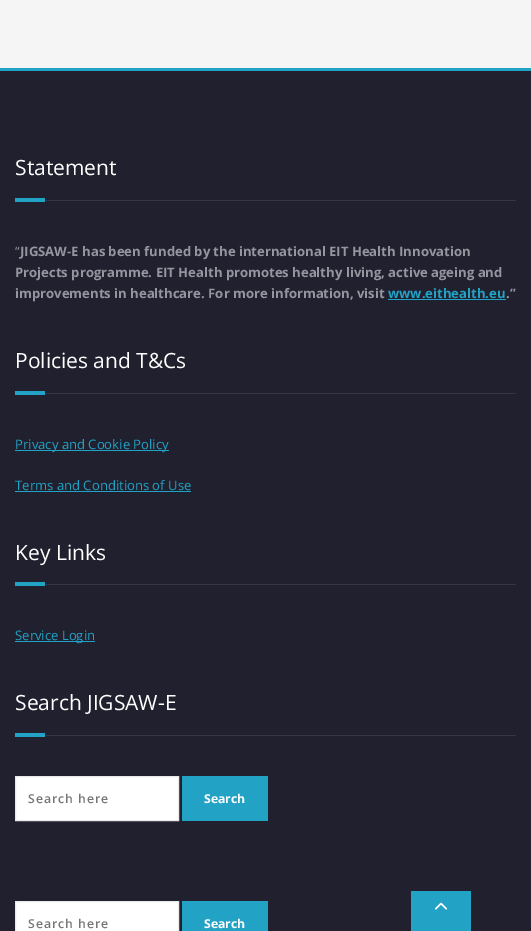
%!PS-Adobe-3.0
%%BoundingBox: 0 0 531 931
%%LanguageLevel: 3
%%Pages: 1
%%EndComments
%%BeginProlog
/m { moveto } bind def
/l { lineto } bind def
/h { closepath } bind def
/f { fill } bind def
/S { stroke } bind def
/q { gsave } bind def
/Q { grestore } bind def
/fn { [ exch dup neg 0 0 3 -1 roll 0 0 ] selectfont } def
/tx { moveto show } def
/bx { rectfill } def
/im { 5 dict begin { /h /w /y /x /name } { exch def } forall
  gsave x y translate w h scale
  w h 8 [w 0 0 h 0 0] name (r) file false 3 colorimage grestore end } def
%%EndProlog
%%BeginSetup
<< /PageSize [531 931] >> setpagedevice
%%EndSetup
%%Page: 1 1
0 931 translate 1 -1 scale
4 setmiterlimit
0.961 setgray
0 0 531 931 bx
0.129 0.125 0.18 setrgbcolor
0 71 531 860 bx
0.133 0.635 0.769 setrgbcolor
0 68 531 3 bx
0.212 0.208 0.267 setrgbcolor
45 200 471 1 bx
/OpenSans-Regular 21 fn
1 setgray
(Statement) 15 175 tx
0.133 0.635 0.769 setrgbcolor
15 198 30 4 bx
/OpenSans-Regular 13.1 fn
0.584 0.584 0.627 setrgbcolor
(“) 15 256 tx
/OpenSans-Bold 13.1 fn
(JIGSAW-E has been funded by the international EIT Health Innovation) 20 256 tx
(Projects programme. EIT Health promotes healthy living, active ageing and) 15 277 tx
(improvements in healthcare. For more information, visit) 15 298 tx
0.133 0.635 0.769 setrgbcolor
(www.eithealth.eu) 388 298 tx
388 299 118 1 bx
0.584 0.584 0.627 setrgbcolor
(.”) 506 298 tx
0.212 0.208 0.267 setrgbcolor
45 393 471 1 bx
/OpenSans-Regular 21 fn
1 setgray
(Policies and T&Cs) 15 368 tx
0.133 0.635 0.769 setrgbcolor
15 391 30 4 bx
15 450 154 1 bx
/OpenSans-Regular 13.1 fn
(Privacy and Cookie Policy) 15 449 tx
(Terms and Conditions of Use) 15 490 tx
15 491 176 1 bx
0.212 0.208 0.267 setrgbcolor
45 584 471 1 bx
/OpenSans-Regular 21 fn
1 setgray
(Key Links) 15 560 tx
0.133 0.635 0.769 setrgbcolor
15 582 30 4 bx
15 641 80 1 bx
/OpenSans-Regular 13.1 fn
(Service Login) 15 640 tx
0.212 0.208 0.267 setrgbcolor
45 735 471 1 bx
/OpenSans-Regular 21 fn
1 setgray
(Search JIGSAW-E) 15 710 tx
0.133 0.635 0.769 setrgbcolor
15 733 30 4 bx
1 setgray
15.5 776.5 m 178.5 776.5 l 178.5 820.5 l 15.5 820.5 l h q f Q
0.914 setgray
S
/OpenSans-SemiBold 12.25 fn
0.459 setgray
28 803 m 1 0 (Search here) ashow
0.133 0.635 0.769 setrgbcolor
182 776 86 45 bx
/OpenSans-Bold 12.25 fn
1 setgray
(Search) 204 803 tx
15.5 901.5 m 178.5 901.5 l 178.5 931.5 l 15.5 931.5 l h q f Q
0.914 setgray
S
/OpenSans-SemiBold 12.25 fn
0.459 setgray
28 928 m 1 0 (Search here) ashow
0.133 0.635 0.769 setrgbcolor
182 901 86 30 bx
/OpenSans-Bold 12.25 fn
1 setgray
(Search) 204 928 tx
0.133 0.635 0.769 setrgbcolor
411 891 60 40 bx
(image0.raw) 434 902 14 8 im
showpage
%%EOF
